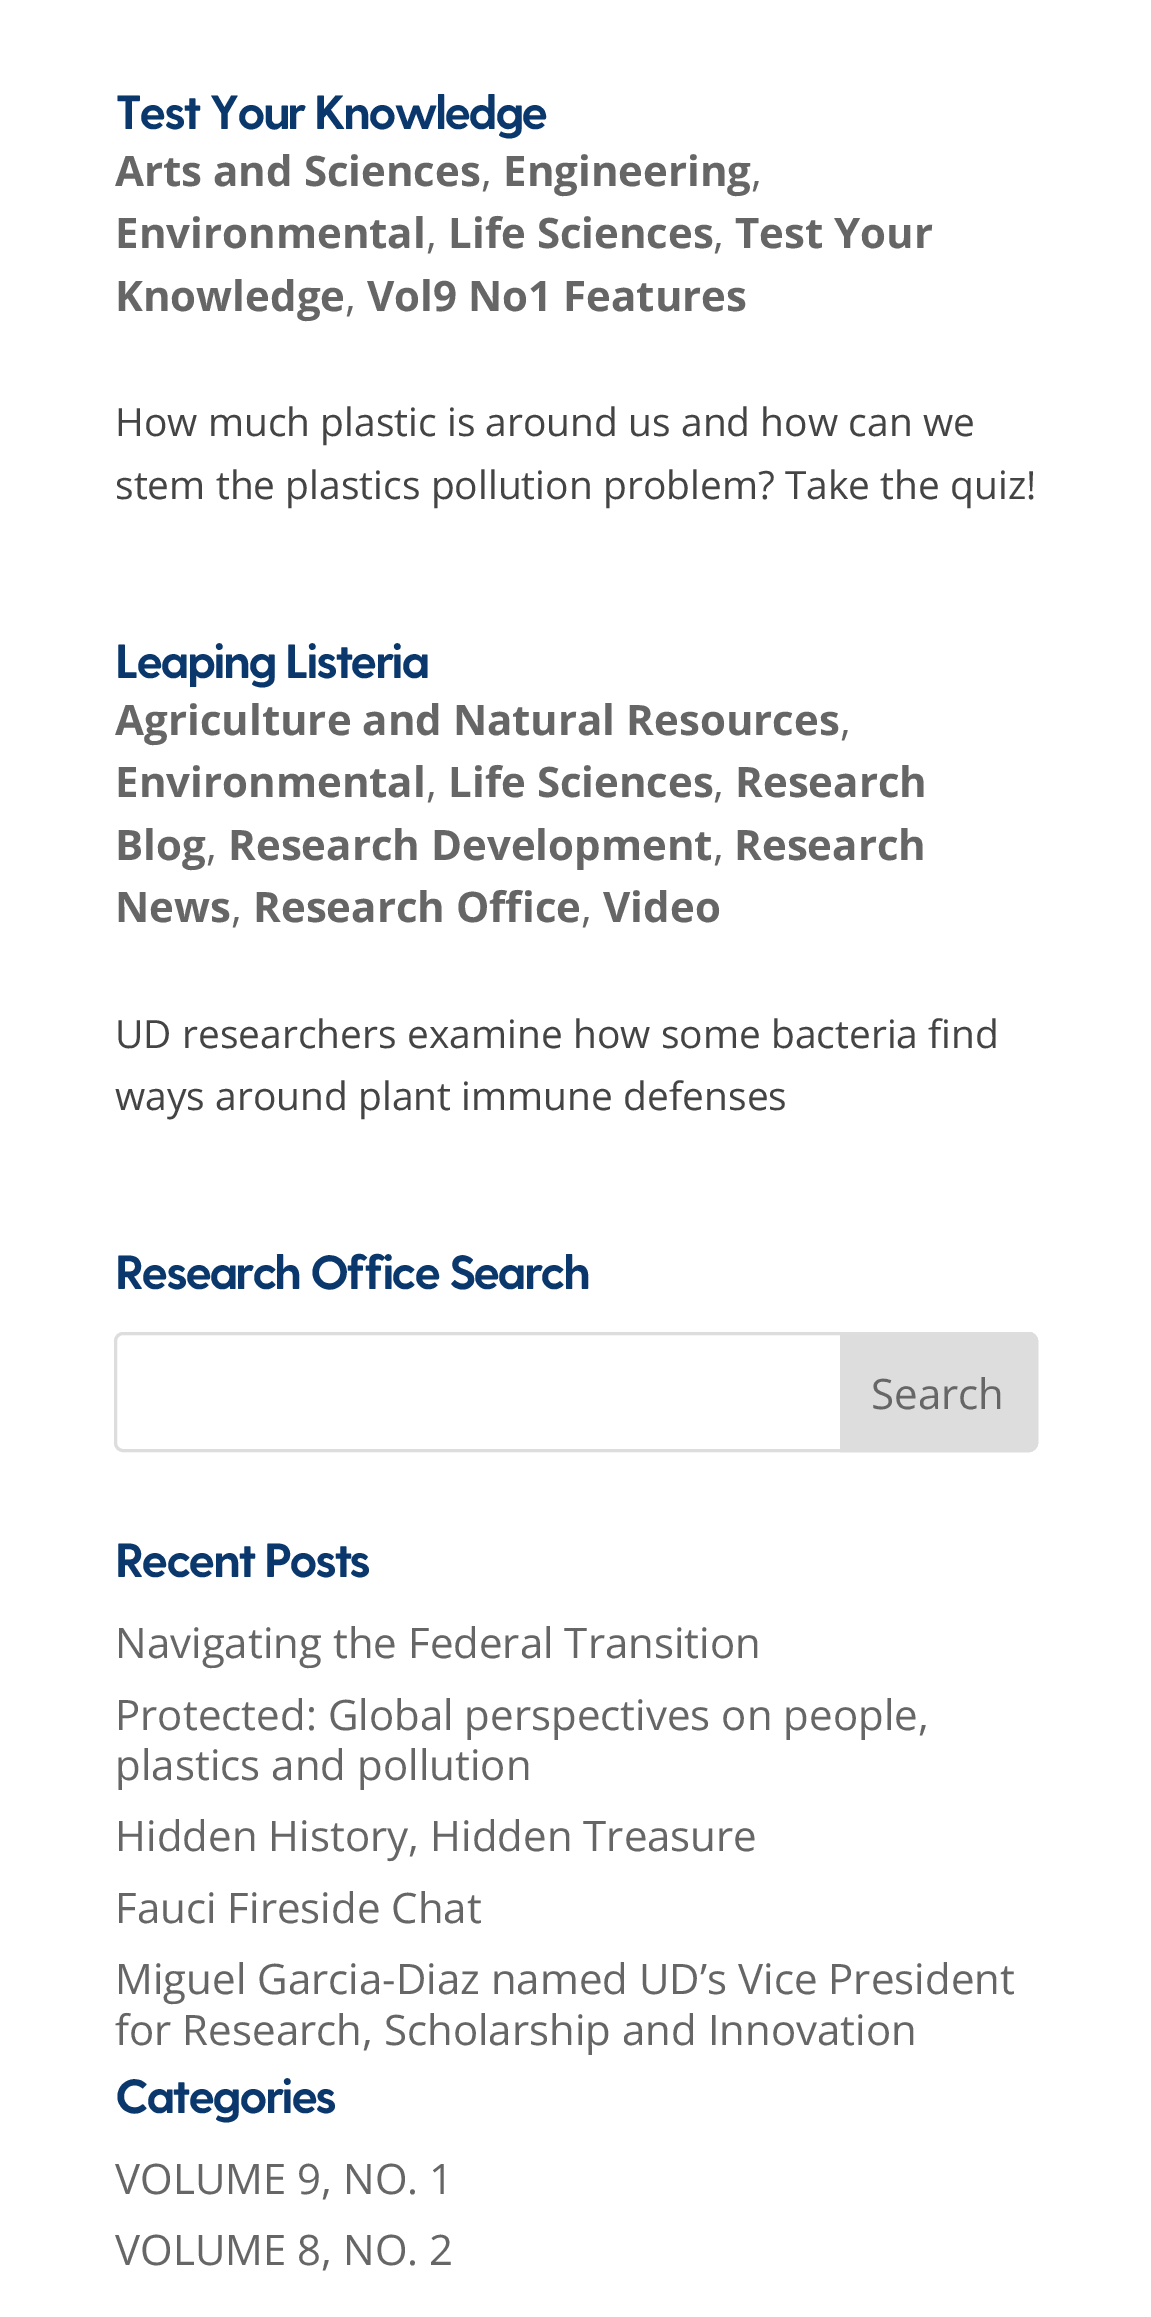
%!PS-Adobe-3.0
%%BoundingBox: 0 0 1151 2317
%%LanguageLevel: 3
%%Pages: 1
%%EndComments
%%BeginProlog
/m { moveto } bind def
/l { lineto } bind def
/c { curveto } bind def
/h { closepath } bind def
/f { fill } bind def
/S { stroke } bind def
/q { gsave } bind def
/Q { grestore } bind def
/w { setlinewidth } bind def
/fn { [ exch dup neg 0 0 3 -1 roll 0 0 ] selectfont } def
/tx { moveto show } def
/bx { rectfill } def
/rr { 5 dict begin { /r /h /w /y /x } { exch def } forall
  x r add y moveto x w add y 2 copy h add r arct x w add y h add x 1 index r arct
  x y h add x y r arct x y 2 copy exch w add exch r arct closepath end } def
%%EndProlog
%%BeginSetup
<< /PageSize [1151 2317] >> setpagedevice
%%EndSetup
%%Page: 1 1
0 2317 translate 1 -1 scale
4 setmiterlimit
1 setgray
0 0 1151 2317 bx
/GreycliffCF-Bold 48 fn
0.043 0.22 0.424 setrgbcolor
115 129 m -3 0 (Test Your Knowledge) ashow
/OpenSans-Bold 42 fn
0.4 setgray
(Arts and Sciences) 115 186 tx
/OpenSans-Regular 42 fn
(,) 481 186 tx
/OpenSans-Bold 42 fn
(Engineering) 503 186 tx
/OpenSans-Regular 42 fn
(,) 751 186 tx
/OpenSans-Bold 42 fn
(Environmental) 115 248 tx
/OpenSans-Regular 42 fn
(,) 426 248 tx
/OpenSans-Bold 42 fn
(Life Sciences) 448 248 tx
/OpenSans-Regular 42 fn
(,) 713 248 tx
/OpenSans-Bold 42 fn
(Test Your) 735 248 tx
(Knowledge) 115 311 tx
/OpenSans-Regular 42 fn
(,) 345 311 tx
/OpenSans-Bold 42 fn
(Vol9 No1 Features) 367 311 tx
/OpenSans-Regular 39 fn
0.267 setgray
(How much plastic is around us and how can we) 115 436 tx
(stem the plastics pollution problem? Take the quiz!) 115 499 tx
/GreycliffCF-Bold 48 fn
0.043 0.22 0.424 setrgbcolor
115 678 m -3 0 (Leaping Listeria) ashow
/OpenSans-Bold 42 fn
0.4 setgray
(Agriculture and Natural Resources) 115 735 tx
/OpenSans-Regular 42 fn
(,) 840 735 tx
/OpenSans-Bold 42 fn
(Environmental) 115 797 tx
/OpenSans-Regular 42 fn
(,) 426 797 tx
/OpenSans-Bold 42 fn
(Life Sciences) 448 797 tx
/OpenSans-Regular 42 fn
(,) 713 797 tx
/OpenSans-Bold 42 fn
(Research) 735 797 tx
(Blog) 115 860 tx
/OpenSans-Regular 42 fn
(,) 206 860 tx
/OpenSans-Bold 42 fn
(Research Development) 228 860 tx
/OpenSans-Regular 42 fn
(,) 713 860 tx
/OpenSans-Bold 42 fn
(Research) 734 860 tx
(News) 115 922 tx
/OpenSans-Regular 42 fn
(,) 231 922 tx
/OpenSans-Bold 42 fn
(Research Office) 253 922 tx
/OpenSans-Regular 42 fn
(,) 581 922 tx
/OpenSans-Bold 42 fn
(Video) 603 922 tx
/OpenSans-Regular 39 fn
0.267 setgray
(UD researchers examine how some bacteria find) 115 1048 tx
(ways around plant immune defenses) 115 1110 tx
/GreycliffCF-Bold 48 fn
0.043 0.22 0.424 setrgbcolor
115 1289 m -3 0 (Research Office Search) ashow
0.867 setgray
3 w
115.5 1333.5 921 117 7.5 rr S
841.5 1333.5 m 1029 1333.5 l 1033 1333.5 1036.5 1337 1036.5 1341 c 1036.5 1443 l 1036.5 1447 1033 1450.5 1029 1450.5 c 841.5 1450.5 l h q f Q
S
/OpenSans-Regular 42 fn
0.4 setgray
(Search) 871 1409 tx
/GreycliffCF-Bold 48 fn
0.043 0.22 0.424 setrgbcolor
115 1577 m -3 0 (Recent Posts) ashow
/OpenSans-Regular 42 fn
0.4 setgray
(Navigating the Federal Transition) 115 1658 tx
(Protected: Global perspectives on people,) 115 1730 tx
(plastics and pollution) 115 1780 tx
(Hidden History, Hidden Treasure) 115 1851 tx
(Fauci Fireside Chat) 115 1923 tx
(Miguel Garcia-Diaz named UD’s Vice President) 115 1994 tx
(for Research, Scholarship and Innovation) 115 2045 tx
/GreycliffCF-Bold 48 fn
0.043 0.22 0.424 setrgbcolor
115 2113 m -3 0 (Categories) ashow
/OpenSans-Regular 42 fn
0.4 setgray
(VOLUME 9, NO. 1) 115 2194 tx
(VOLUME 8, NO. 2) 115 2265 tx
showpage
%%EOF
